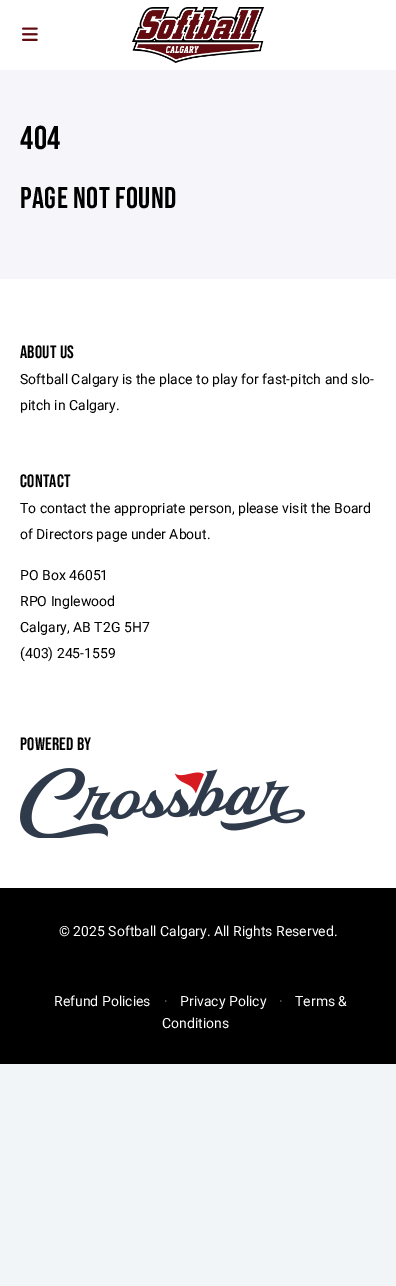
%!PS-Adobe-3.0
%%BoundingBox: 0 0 396 1286
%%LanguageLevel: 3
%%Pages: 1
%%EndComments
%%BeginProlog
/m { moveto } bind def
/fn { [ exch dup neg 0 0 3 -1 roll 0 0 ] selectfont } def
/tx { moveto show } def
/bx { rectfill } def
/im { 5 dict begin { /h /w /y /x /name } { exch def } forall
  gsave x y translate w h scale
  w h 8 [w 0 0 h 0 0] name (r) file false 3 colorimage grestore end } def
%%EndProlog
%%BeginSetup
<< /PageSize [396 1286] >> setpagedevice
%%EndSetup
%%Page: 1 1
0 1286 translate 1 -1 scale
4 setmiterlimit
0.949 0.961 0.969 setrgbcolor
0 0 396 1286 bx
1 setgray
0 0 396 70 bx
(image0.raw) 22 27 16 14 im
(image1.raw) 132 7 132 56 im
0.965 0.961 0.98 setrgbcolor
0 70 396 209 bx
/BebasNeue-Regular 33 fn
0 setgray
20 149 m 0.5 0 (404) ashow
/BebasNeue-Regular 30 fn
20 208 m 0.4 0 (PAGE NOT FOUND) ashow
1 setgray
0 279 396 609 bx
/BebasNeue-Regular 18 fn
0 setgray
20 358 m 0.25 0 (ABOUT US) ashow
/Roboto-Regular 14 fn
(Softball Calgary is the place to play for fast-pitch and slo-) 20 384 tx
(pitch in Calgary.) 20 410 tx
/BebasNeue-Regular 18 fn
20 487 m 0.25 0 (CONTACT) ashow
/Roboto-Regular 14 fn
(To contact the appropriate person, please visit the Board) 20 513 tx
(of Directors page under About.) 20 539 tx
(PO Box 46051) 20 580 tx
(RPO Inglewood) 20 606 tx
(Calgary, AB T2G 5H7) 20 632 tx
(\(403\) 245-1559) 20 658 tx
/BebasNeue-Regular 18 fn
20 750 m 0.25 0 (POWERED BY) ashow
(image2.raw) 20 768 285 70 im
0 888 396 176 bx
/Roboto-Regular 14 fn
1 setgray
(© 2025 Softball Calgary. All Rights Reserved.) 59 936 tx
(Refund Policies) 54 1006 tx
0.439 0.494 0.549 setrgbcolor
(·) 279 1006 tx
1 setgray
(Terms &) 295 1006 tx
(Conditions) 162 1028 tx
0.439 0.494 0.549 setrgbcolor
(·) 164 1006 tx
1 setgray
(Privacy Policy) 180 1006 tx
showpage
%%EOF
